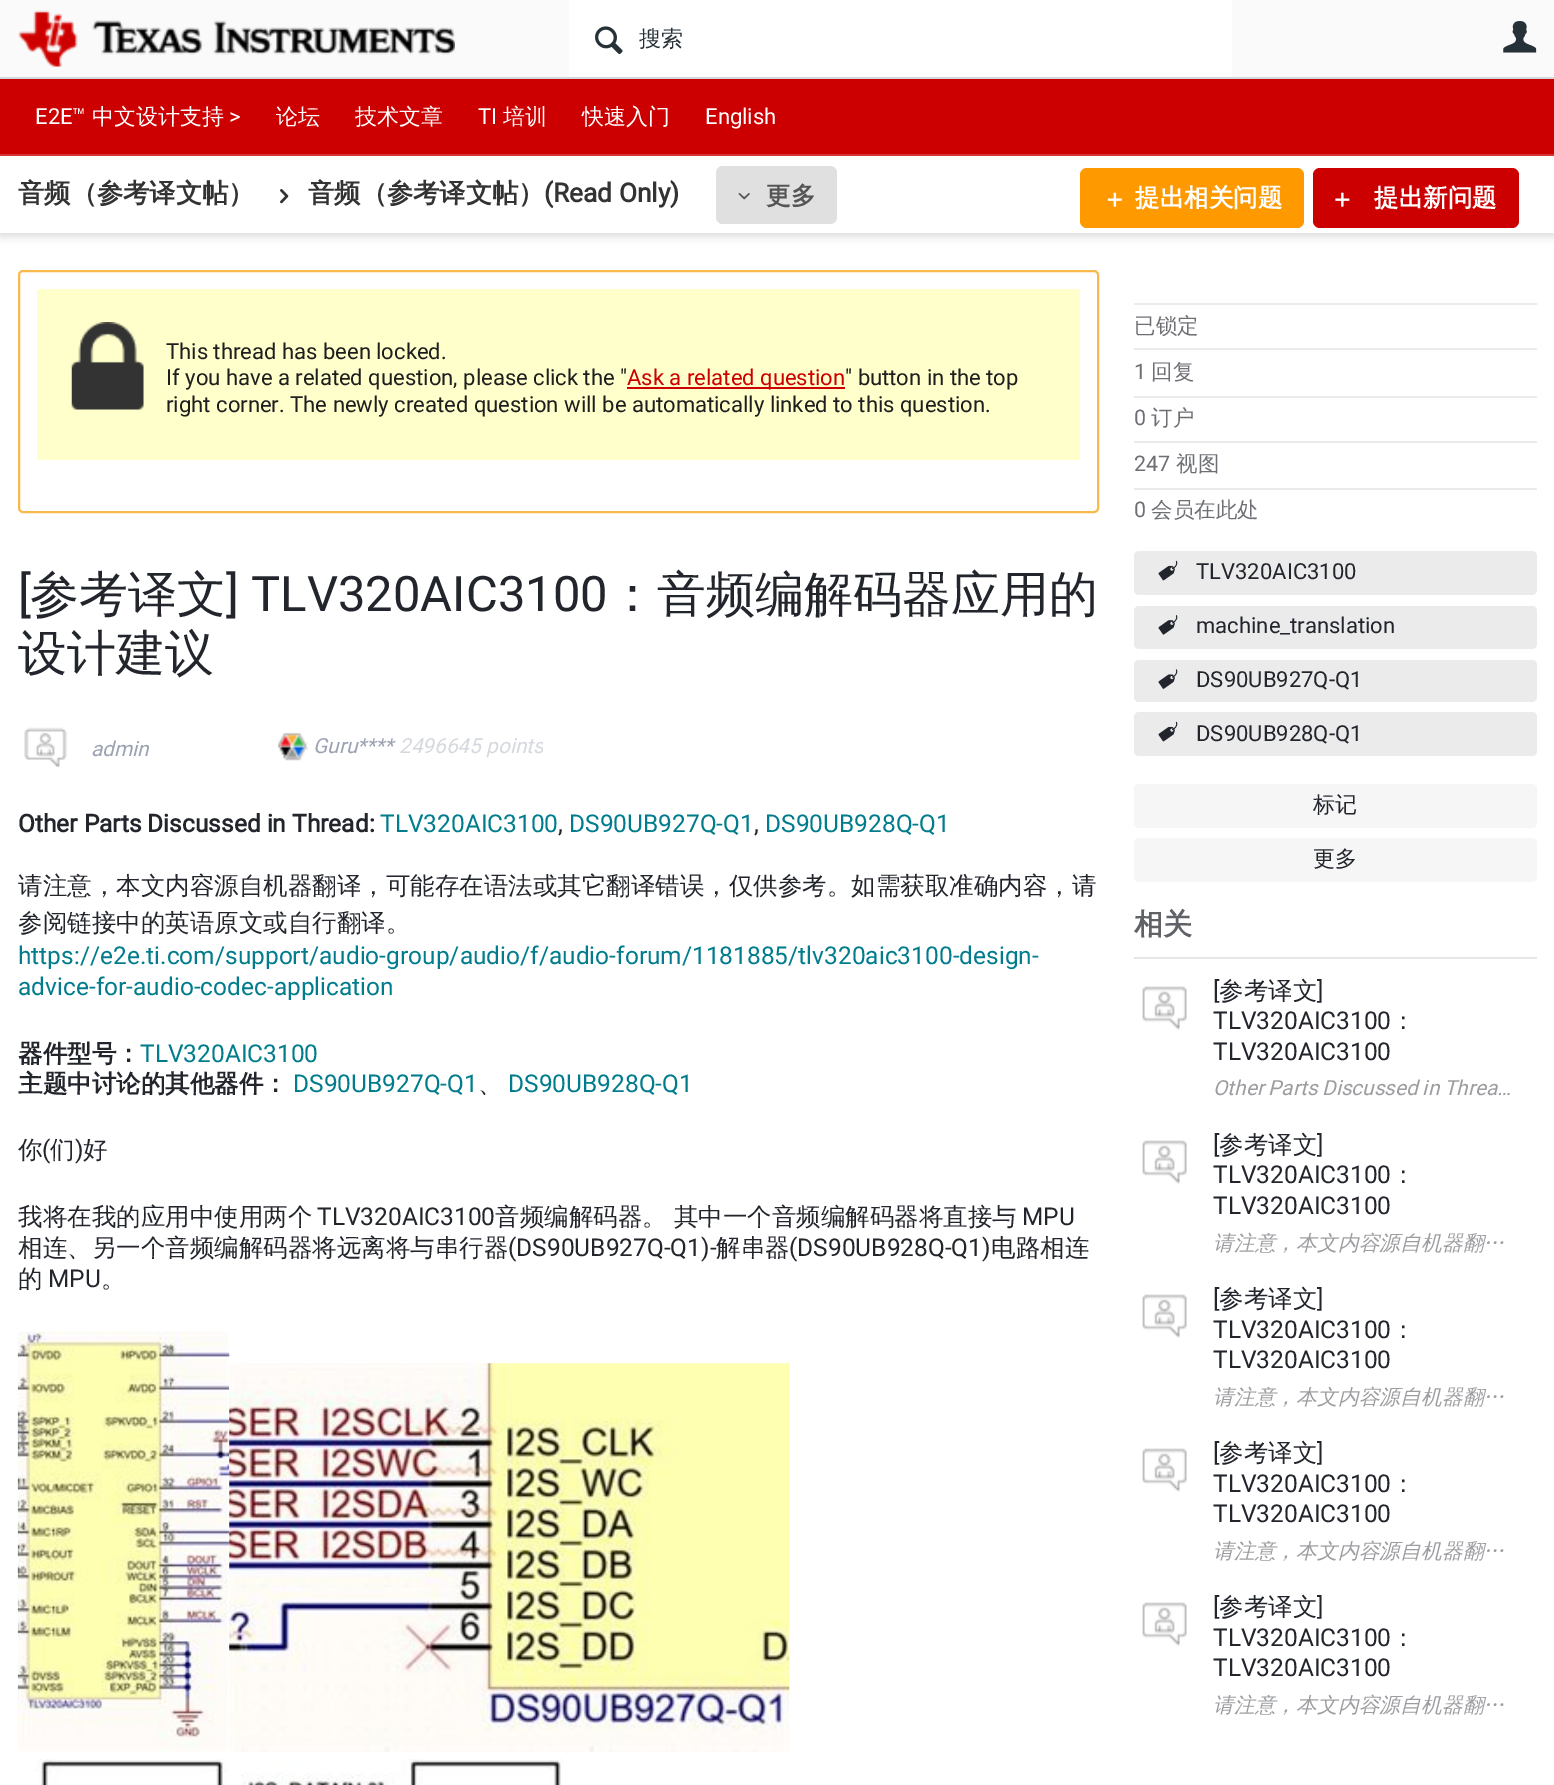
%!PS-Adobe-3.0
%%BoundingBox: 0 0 1554 1785
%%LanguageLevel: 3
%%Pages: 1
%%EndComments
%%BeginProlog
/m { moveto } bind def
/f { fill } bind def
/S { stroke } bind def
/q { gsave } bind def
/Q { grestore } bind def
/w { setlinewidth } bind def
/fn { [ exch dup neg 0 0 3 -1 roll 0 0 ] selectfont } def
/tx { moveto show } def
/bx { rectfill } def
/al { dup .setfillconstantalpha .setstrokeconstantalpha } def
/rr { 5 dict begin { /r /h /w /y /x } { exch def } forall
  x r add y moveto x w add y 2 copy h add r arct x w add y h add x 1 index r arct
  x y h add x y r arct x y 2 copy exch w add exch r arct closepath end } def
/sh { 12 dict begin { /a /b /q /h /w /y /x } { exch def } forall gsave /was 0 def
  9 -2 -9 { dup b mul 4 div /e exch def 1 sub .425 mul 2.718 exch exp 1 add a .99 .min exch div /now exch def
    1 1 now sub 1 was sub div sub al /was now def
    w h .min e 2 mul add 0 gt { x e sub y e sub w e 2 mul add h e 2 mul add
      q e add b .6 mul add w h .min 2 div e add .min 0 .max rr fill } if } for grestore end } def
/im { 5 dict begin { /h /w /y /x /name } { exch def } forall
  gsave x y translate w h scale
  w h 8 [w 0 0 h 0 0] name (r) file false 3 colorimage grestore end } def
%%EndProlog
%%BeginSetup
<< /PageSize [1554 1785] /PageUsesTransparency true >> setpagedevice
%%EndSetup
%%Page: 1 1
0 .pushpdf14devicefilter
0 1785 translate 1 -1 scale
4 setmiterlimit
1 setgray
0 0 1554 1785 bx
0 setgray
0 4 1554 232 0 4.5 0.15 sh
1 setgray
0 156 1554 77 bx
0.98 setgray
0 0 1554 77 bx
0.812 0.847 0.863 setrgbcolor
0 77 1554 2 bx
(image0.raw) 18 10 437 57 im
1 setgray
569 0 663 77 bx
(image1.raw) 595 26 28 29 im
/WenQuanYiZenHei-Medium 22.05 fn
0.149 0.196 0.22 setrgbcolor
(搜索) 639 46 tx
(image2.raw) 1503 21 34 32 im
0.8 0 0 setrgbcolor
0 79 1554 75 bx
0.839 0.2 0.2 setrgbcolor
0 154 1554 2 bx
/Roboto-Regular 22.05 fn
1 setgray
(E2E™) 35 124 tx
/WenQuanYiZenHei-Medium 22.05 fn
(中文设计支持) 92 124 tx
/Roboto-Regular 22.05 fn
(>) 229 124 tx
/WenQuanYiZenHei-Medium 22.05 fn
(论坛) 276 124 tx
(技术文章) 355 124 tx
/Roboto-Regular 22.05 fn
(TI) 478 124 tx
/WenQuanYiZenHei-Medium 22.05 fn
(培训) 503 124 tx
(快速入门) 582 124 tx
/Roboto-Regular 22.05 fn
(English) 705 124 tx
/WenQuanYiZenHei-Bold 26.25 fn
0.2 setgray
(音频（参考译文帖）) 18 202 tx
(image3.raw) 280 189 9 15 im
(音频（参考译文帖）) 308 202 tx
/Roboto-Bold 26.25 fn
(\(Read Only\)) 544 202 tx
0.878 setgray
716 166 121 58 7 rr f
(image4.raw) 738 193 12 7 im
/WenQuanYiZenHei-Bold 24.5 fn
0.333 setgray
(更多) 766 204 tx
1 0.6 0 setrgbcolor
1080 168 224 60 7 rr f
(image5.raw) 1107 192 15 15 im
1 setgray
(提出相关问题) 1135 206 tx
0.8 0 0 setrgbcolor
1313 168 206 60 7 rr f
(image6.raw) 1335 192 15 15 im
1 setgray
(提出新问题) 1374 206 tx
0.98 0.725 0.302 setrgbcolor
2 w
19 271 1079 241 4 rr S
1 1 0.8 setrgbcolor
37 289 1043 171 bx
(image7.raw) 71 322 73 88 im
/Roboto-Regular 22.05 fn
0.118 setgray
(This thread has been locked.) 166 359 tx
(If you have a related question, please click the ") 166 385 tx
0.8 0 0 setrgbcolor
627 387 218 2 bx
(Ask a related question) 627 385 tx
0.118 setgray
(" button in the top) 845 385 tx
(right corner. The newly created question will be automatically linked to this question.) 166 412 tx
/Roboto-Regular 49 fn
0.133 0.145 0.173 setrgbcolor
([) 18 611 tx
/WenQuanYiZenHei-Medium 49 fn
(参考译文) 30 611 tx
/Roboto-Regular 49 fn
(] TLV320AIC3100) 226 611 tx
/WenQuanYiZenHei-Medium 49 fn
(：音频编解码器应用的) 608 611 tx
q
18 548 1081 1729 rectclip
(设计建议) 18 670 tx
Q
(image8.raw) 24 727 43 41 im
/Roboto-Italic 20.8 fn
0.608 0.635 0.698 setrgbcolor
(admin) 91 756 tx
(image9.raw) 278 732 30 29 im
(Guru****) 313 753 tx
0.835 0.847 0.871 setrgbcolor
(2496645) 399 753 tx
q
18 719 525 56 rectclip
(points) 486 753 tx
Q
/Roboto-Bold 24.5 fn
0.133 0.145 0.173 setrgbcolor
(Other Parts Discussed in Thread:) 18 832 tx
/Roboto-Regular 24.5 fn
0 0.486 0.549 setrgbcolor
(TLV320AIC3100) 380 832 tx
0.133 0.145 0.173 setrgbcolor
(,) 558 832 tx
0 0.486 0.549 setrgbcolor
(DS90UB927Q-Q1) 569 832 tx
0.133 0.145 0.173 setrgbcolor
(,) 754 832 tx
0 0.486 0.549 setrgbcolor
(DS90UB928Q-Q1) 765 832 tx
/WenQuanYiZenHei-Medium 24.5 fn
0.133 0.145 0.173 setrgbcolor
(请注意，本文内容源自机器翻译，可能存在语法或其它翻译错误，仅供参考。如需获取准确内容，请) 18 894 tx
(参阅链接中的英语原文或自行翻译。) 18 931 tx
/Roboto-Regular 24.5 fn
0 0.486 0.549 setrgbcolor
(https://e2e.ti.com/support/audio-group/audio/f/audio-forum/1181885/tlv320aic3100-design-) 18 964 tx
(advice-for-audio-codec-application) 18 995 tx
/WenQuanYiZenHei-Bold 24.5 fn
0.133 0.145 0.173 setrgbcolor
(器件型号：) 18 1062 tx
/Roboto-Regular 24.5 fn
0 0.486 0.549 setrgbcolor
(TLV320AIC3100) 140 1062 tx
/WenQuanYiZenHei-Bold 24.5 fn
0.133 0.145 0.173 setrgbcolor
(主题中讨论的其他器件：) 18 1092 tx
/Roboto-Regular 24.5 fn
0 0.486 0.549 setrgbcolor
(DS90UB927Q-Q1) 293 1092 tx
/WenQuanYiZenHei-Medium 24.5 fn
0.133 0.145 0.173 setrgbcolor
(、) 478 1092 tx
/Roboto-Regular 24.5 fn
0 0.486 0.549 setrgbcolor
(DS90UB928Q-Q1) 508 1092 tx
/WenQuanYiZenHei-Medium 24.5 fn
0.133 0.145 0.173 setrgbcolor
(你) 18 1158 tx
/Roboto-Regular 24.5 fn
(\() 42 1158 tx
/WenQuanYiZenHei-Medium 24.5 fn
(们) 50 1158 tx
/Roboto-Regular 24.5 fn
(\)) 75 1158 tx
/WenQuanYiZenHei-Medium 24.5 fn
(好) 83 1158 tx
(我将在我的应用中使用两个) 18 1225 tx
/Roboto-Regular 24.5 fn
(TLV320AIC3100) 317 1225 tx
/WenQuanYiZenHei-Medium 24.5 fn
(音频编解码器。 其中一个音频编解码器将直接与) 495 1225 tx
/Roboto-Regular 24.5 fn
(MPU) 1022 1225 tx
/WenQuanYiZenHei-Medium 24.5 fn
(相连、另一个音频编解码器将远离将与串行器) 18 1256 tx
/Roboto-Regular 24.5 fn
(\(DS90UB927Q-Q1\)-) 508 1256 tx
/WenQuanYiZenHei-Medium 24.5 fn
(解串器) 716 1256 tx
/Roboto-Regular 24.5 fn
(\(DS90UB928Q-Q1\)) 789 1256 tx
/WenQuanYiZenHei-Medium 24.5 fn
(电路相连) 991 1256 tx
(的) 18 1287 tx
/Roboto-Regular 24.5 fn
(MPU) 48 1287 tx
/WenQuanYiZenHei-Medium 24.5 fn
(。) 101 1287 tx
(image10.raw) 17 1331 213 421 im
(image11.raw) 229 1363 561 389 im
(image12.raw) 35 1759 528 26 im
0.922 0.922 0.925 setrgbcolor
1134 303 403 2 bx
1134 348 403 2 bx
/WenQuanYiZenHei-Medium 21.5 fn
0.427 0.435 0.455 setrgbcolor
(已锁定) 1134 333 tx
0.922 0.922 0.925 setrgbcolor
1134 396 403 2 bx
/Roboto-Regular 21.5 fn
0.427 0.435 0.455 setrgbcolor
(1) 1134 379 tx
/WenQuanYiZenHei-Medium 21.5 fn
(回复) 1151 379 tx
0.922 0.922 0.925 setrgbcolor
1134 441 403 2 bx
/Roboto-Regular 21.5 fn
0.427 0.435 0.455 setrgbcolor
(0) 1134 425 tx
/WenQuanYiZenHei-Medium 21.5 fn
(订户) 1151 425 tx
0.922 0.922 0.925 setrgbcolor
1134 488 403 2 bx
/Roboto-Regular 21.5 fn
0.427 0.435 0.455 setrgbcolor
(247) 1134 471 tx
/WenQuanYiZenHei-Medium 21.5 fn
(视图) 1176 471 tx
/Roboto-Regular 21.5 fn
(0) 1134 517 tx
/WenQuanYiZenHei-Medium 21.5 fn
(会员在此处) 1151 517 tx
0.922 0.922 0.925 setrgbcolor
1134 551 403 44 5 rr f
(image13.raw) 1158 560 20 21 im
/Roboto-Regular 22.05 fn
0.133 0.145 0.173 setrgbcolor
(TLV320AIC3100) 1196 579 tx
0.922 0.922 0.925 setrgbcolor
1134 606 403 43 5 rr f
(image14.raw) 1158 615 20 20 im
0.133 0.145 0.173 setrgbcolor
(machine_translation) 1196 633 tx
0.922 0.922 0.925 setrgbcolor
1134 660 403 42 5 rr f
(image15.raw) 1158 669 20 20 im
0.133 0.145 0.173 setrgbcolor
(DS90UB927Q-Q1) 1196 687 tx
0.922 0.922 0.925 setrgbcolor
1134 712 403 44 5 rr f
(image13.raw) 1158 721 20 21 im
0.133 0.145 0.173 setrgbcolor
(DS90UB928Q-Q1) 1196 741 tx
0.965 0.965 0.969 setrgbcolor
1134 784 403 44 5 rr f
/WenQuanYiZenHei-Medium 22.05 fn
0.133 0.145 0.173 setrgbcolor
(标记) 1313 812 tx
0.965 0.965 0.969 setrgbcolor
1134 838 403 44 5 rr f
0.133 0.145 0.173 setrgbcolor
(更多) 1313 866 tx
0.906 0.906 0.91 setrgbcolor
1134 957 403 2 bx
/WenQuanYiZenHei-Bold 29 fn
0.376 0.384 0.404 setrgbcolor
(相关) 1134 934 tx
/Roboto-Regular 24.5 fn
0.133 0.145 0.173 setrgbcolor
([) 1213 999 tx
/WenQuanYiZenHei-Medium 24.5 fn
(参考译文) 1219 999 tx
/Roboto-Regular 24.5 fn
(]) 1317 999 tx
(TLV320AIC3100) 1213 1029 tx
/WenQuanYiZenHei-Medium 24.5 fn
(：) 1391 1029 tx
/Roboto-Regular 24.5 fn
(TLV320AIC3100) 1213 1060 tx
(image16.raw) 1142 986 45 44 im
/Roboto-Italic 20.8 fn
0.612 0.616 0.627 setrgbcolor
1213 1095 m -0.5 0 32 (Other Parts Discussed in Threa…) widthshow
/Roboto-Regular 24.5 fn
0.133 0.145 0.173 setrgbcolor
([) 1213 1153 tx
/WenQuanYiZenHei-Medium 24.5 fn
(参考译文) 1219 1153 tx
/Roboto-Regular 24.5 fn
(]) 1317 1153 tx
(TLV320AIC3100) 1213 1183 tx
/WenQuanYiZenHei-Medium 24.5 fn
(：) 1391 1183 tx
/Roboto-Regular 24.5 fn
(TLV320AIC3100) 1213 1214 tx
(image16.raw) 1142 1140 45 44 im
/WenQuanYiZenHei-MediumItalic 20.8 fn
0.612 0.616 0.627 setrgbcolor
(请注意，本文内容源自机器翻…) 1213 1250 tx
/Roboto-Regular 24.5 fn
0.133 0.145 0.173 setrgbcolor
([) 1213 1307 tx
/WenQuanYiZenHei-Medium 24.5 fn
(参考译文) 1219 1307 tx
/Roboto-Regular 24.5 fn
(]) 1317 1307 tx
(TLV320AIC3100) 1213 1338 tx
/WenQuanYiZenHei-Medium 24.5 fn
(：) 1391 1338 tx
/Roboto-Regular 24.5 fn
(TLV320AIC3100) 1213 1368 tx
(image16.raw) 1142 1294 45 44 im
/WenQuanYiZenHei-MediumItalic 20.8 fn
0.612 0.616 0.627 setrgbcolor
(请注意，本文内容源自机器翻…) 1213 1404 tx
/Roboto-Regular 24.5 fn
0.133 0.145 0.173 setrgbcolor
([) 1213 1461 tx
/WenQuanYiZenHei-Medium 24.5 fn
(参考译文) 1219 1461 tx
/Roboto-Regular 24.5 fn
(]) 1317 1461 tx
(TLV320AIC3100) 1213 1492 tx
/WenQuanYiZenHei-Medium 24.5 fn
(：) 1391 1492 tx
/Roboto-Regular 24.5 fn
(TLV320AIC3100) 1213 1522 tx
(image17.raw) 1142 1448 45 44 im
/WenQuanYiZenHei-MediumItalic 20.8 fn
0.612 0.616 0.627 setrgbcolor
(请注意，本文内容源自机器翻…) 1213 1558 tx
/Roboto-Regular 24.5 fn
0.133 0.145 0.173 setrgbcolor
([) 1213 1615 tx
/WenQuanYiZenHei-Medium 24.5 fn
(参考译文) 1219 1615 tx
/Roboto-Regular 24.5 fn
(]) 1317 1615 tx
(TLV320AIC3100) 1213 1646 tx
/WenQuanYiZenHei-Medium 24.5 fn
(：) 1391 1646 tx
/Roboto-Regular 24.5 fn
(TLV320AIC3100) 1213 1676 tx
(image16.raw) 1142 1602 45 44 im
/WenQuanYiZenHei-MediumItalic 20.8 fn
0.612 0.616 0.627 setrgbcolor
(请注意，本文内容源自机器翻…) 1213 1712 tx
.poppdf14devicefilter showpage
%%EOF
